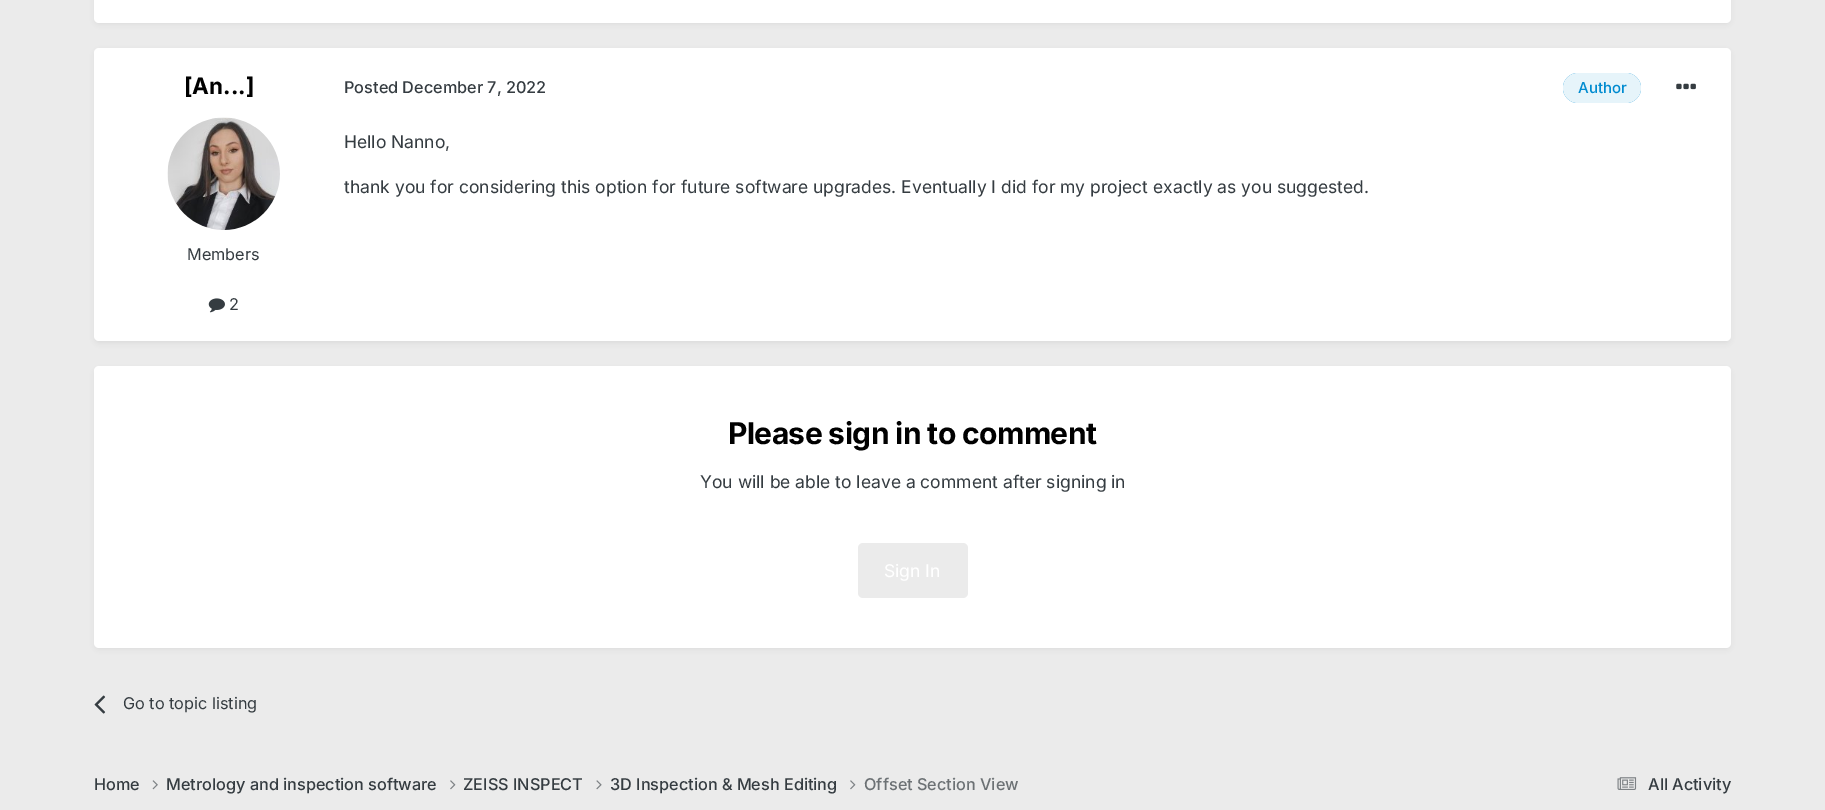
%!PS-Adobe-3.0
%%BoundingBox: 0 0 1825 810
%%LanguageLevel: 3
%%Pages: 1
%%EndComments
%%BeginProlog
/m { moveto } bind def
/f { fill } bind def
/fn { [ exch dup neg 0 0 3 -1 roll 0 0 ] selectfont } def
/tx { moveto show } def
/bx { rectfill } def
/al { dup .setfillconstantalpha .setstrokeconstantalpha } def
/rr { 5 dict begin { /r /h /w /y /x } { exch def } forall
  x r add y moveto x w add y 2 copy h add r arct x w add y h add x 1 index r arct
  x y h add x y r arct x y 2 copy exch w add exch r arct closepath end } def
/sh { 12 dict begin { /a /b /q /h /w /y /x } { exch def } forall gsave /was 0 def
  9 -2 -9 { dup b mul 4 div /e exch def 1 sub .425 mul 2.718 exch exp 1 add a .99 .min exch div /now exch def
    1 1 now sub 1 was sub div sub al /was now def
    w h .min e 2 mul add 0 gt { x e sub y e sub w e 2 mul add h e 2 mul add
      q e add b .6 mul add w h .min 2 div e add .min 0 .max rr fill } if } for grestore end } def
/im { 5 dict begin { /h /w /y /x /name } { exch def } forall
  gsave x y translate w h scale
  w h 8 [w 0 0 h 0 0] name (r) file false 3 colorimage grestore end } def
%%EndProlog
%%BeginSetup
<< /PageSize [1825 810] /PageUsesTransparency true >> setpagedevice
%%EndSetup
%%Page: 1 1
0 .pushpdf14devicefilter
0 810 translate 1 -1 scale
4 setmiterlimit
0.922 setgray
0 0 1825 810 bx
0.302 setgray
95 -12 1635 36 4 2.5 0.1 sh
1 setgray
94 -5 1637 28 5 rr f
0.302 setgray
95 51 1635 292 4 2.5 0.1 sh
1 setgray
94 48 1637 293 5 rr f
/Inter-Bold 22.5 fn
0 setgray
([An...]) 184 94 tx
(image0.raw) 167 117 113 113 im
/Inter-Regular 16.25 fn
0.208 0.235 0.255 setrgbcolor
(Members) 187 260 tx
(image1.raw) 208 298 17 15 im
(2) 229 310 tx
/Inter-Medium 16.25 fn
(Posted December 7, 2022) 344 93 tx
0 0.545 0.816 setrgbcolor
1563 73 78 30 15 rr f
0.9 al
1 setgray
1563 73 78 30 15 rr f
/Inter-Medium 15 fn
1 al
0 0.545 0.816 setrgbcolor
(Author) 1578 93 tx
(image2.raw) 1676 83 20 7 im
/Inter-Regular 17.5 fn
0.208 0.235 0.255 setrgbcolor
(Hello Nanno,) 344 148 tx
(thank you for considering this option for future software upgrades. Eventually I did for my project exactly as you suggested.) 344 193 tx
0.302 setgray
95 370 1635 279 4 2.5 0.1 sh
1 setgray
94 366 1637 282 5 rr f
/Inter-Bold 30 fn
0 setgray
728 444 m -0.6 0 (Please sign in to comment) ashow
/Inter-Regular 17.5 fn
0.208 0.235 0.255 setrgbcolor
(You will be able to leave a comment after signing in) 700 488 tx
0.922 setgray
858 543 110 55 5 rr f
1 setgray
(Sign In) 884 577 tx
(image3.raw) 94 695 12 19 im
/Inter-Regular 16.25 fn
0.208 0.235 0.255 setrgbcolor
(Go to topic listing) 123 709 tx
/Inter-Medium 16.25 fn
(Home) 94 790 tx
(image4.raw) 152 780 6 10 im
(Metrology and inspection software) 166 790 tx
(image5.raw) 450 780 6 10 im
(ZEISS INSPECT) 463 790 tx
(image6.raw) 596 780 6 10 im
(3D Inspection & Mesh Editing) 610 790 tx
(image5.raw) 850 780 6 10 im
0.424 0.443 0.455 setrgbcolor
(Offset Section View) 864 790 tx
(image7.raw) 1617 777 20 13 im
0.208 0.235 0.255 setrgbcolor
(All Activity) 1648 790 tx
.poppdf14devicefilter showpage
%%EOF
